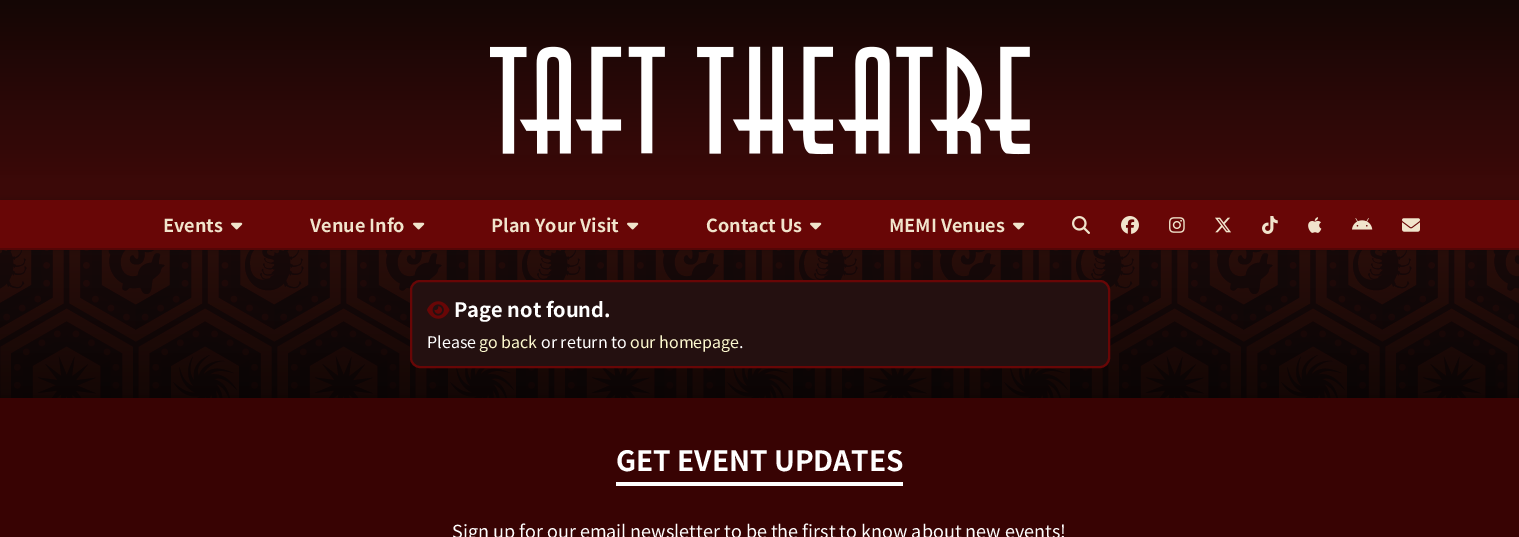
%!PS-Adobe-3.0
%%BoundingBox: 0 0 1519 537
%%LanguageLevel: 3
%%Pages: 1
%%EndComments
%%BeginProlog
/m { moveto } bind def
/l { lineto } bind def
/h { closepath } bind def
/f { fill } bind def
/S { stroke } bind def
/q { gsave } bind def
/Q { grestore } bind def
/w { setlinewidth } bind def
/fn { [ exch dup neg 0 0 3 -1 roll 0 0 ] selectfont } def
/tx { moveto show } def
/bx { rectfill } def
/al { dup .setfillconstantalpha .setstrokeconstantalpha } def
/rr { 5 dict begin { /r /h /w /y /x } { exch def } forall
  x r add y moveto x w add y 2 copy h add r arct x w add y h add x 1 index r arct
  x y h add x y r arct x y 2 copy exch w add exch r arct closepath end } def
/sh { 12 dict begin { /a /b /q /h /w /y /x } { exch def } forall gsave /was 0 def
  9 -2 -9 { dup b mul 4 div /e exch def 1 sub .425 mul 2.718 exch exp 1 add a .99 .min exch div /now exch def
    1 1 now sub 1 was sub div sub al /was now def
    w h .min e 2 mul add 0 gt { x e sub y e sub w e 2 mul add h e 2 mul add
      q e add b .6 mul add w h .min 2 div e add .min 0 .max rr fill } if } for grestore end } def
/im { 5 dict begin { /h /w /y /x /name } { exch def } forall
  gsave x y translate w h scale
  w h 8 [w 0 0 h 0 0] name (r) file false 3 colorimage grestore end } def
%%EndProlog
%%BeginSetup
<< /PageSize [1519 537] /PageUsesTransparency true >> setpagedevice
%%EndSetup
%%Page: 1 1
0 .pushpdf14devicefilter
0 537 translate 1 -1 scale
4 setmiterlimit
1 setgray
0 0 1519 537 bx
(image0.raw) 0 250 1519 148 im
q 0 0 m 1519 0 l 1519 200 l 0 200 l h clip newpath
<< /ShadingType 2 /ColorSpace /DeviceRGB /Coords [760 0 760 200] /Extend [true true] /Function << /FunctionType 3 /Domain [0 1] /Functions [<< /FunctionType 2 /Domain [0 1] /C0 [0.078 0.024 0.02] /C1 [0.231 0.035 0.031] /N 1 >> << /FunctionType 2 /Domain [0 1] /C0 [0.231 0.035 0.031] /C1 [0.231 0.035 0.031] /N 1 >>] /Bounds [0.9] /Encode [0 1 0 1] >> >> shfill Q
(image1.raw) 490 46 540 109 im
0 setgray
0 200 1519 50 0 4 0.2 sh
0.408 0.024 0.024 setrgbcolor
0 200 1519 48 bx
0.325 0.02 0.02 setrgbcolor
0 248 1519 2 bx
/NotoSansJP-Bold 18 fn
0.945 0.894 0.8 setrgbcolor
(Events) 163 232 tx
(image2.raw) 231 222 12 8 im
(Venue Info) 310 232 tx
(image2.raw) 413 222 12 8 im
(Plan Your Visit) 491 232 tx
(image2.raw) 627 222 12 8 im
(Contact Us) 706 232 tx
(image2.raw) 810 222 12 8 im
(MEMI Venues) 889 232 tx
(image2.raw) 1013 222 12 8 im
(image3.raw) 1072 216 18 18 im
(image4.raw) 1121 216 18 18 im
(image5.raw) 1169 217 16 16 im
(image6.raw) 1215 217 16 16 im
(image7.raw) 1262 216 16 18 im
(image8.raw) 1308 217 14 16 im
(image9.raw) 1352 218 21 12 im
(image10.raw) 1402 218 18 14 im
0.141 0.063 0.063 setrgbcolor
411 281 698 86 9 rr q f Q
0.408 0.024 0.024 setrgbcolor
2 w
S
(image11.raw) 427 301 23 18 im
/NotoSansJP-Bold 20 fn
1 setgray
(Page not found.) 454 317 tx
/NotoSansJP-Regular 16 fn
(Please) 427 348 tx
0.992 0.976 0.812 setrgbcolor
(go back) 479 348 tx
1 setgray
(or return to) 541 348 tx
0.992 0.976 0.812 setrgbcolor
(our homepage) 630 348 tx
1 setgray
(.) 739 348 tx
0 setgray
0 398 1519 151 0 4 0.2 sh
0.22 0.012 0.012 setrgbcolor
0 398 1519 139 bx
/NotoSansJP-Bold 28 fn
1 setgray
(GET EVENT UPDATES) 616 471 tx
616 482 287 4 bx
/NotoSansJP-Regular 18 fn
(Sign up for our email newsletter to be the first to know about new events!) 452 538 tx
.poppdf14devicefilter showpage
%%EOF
